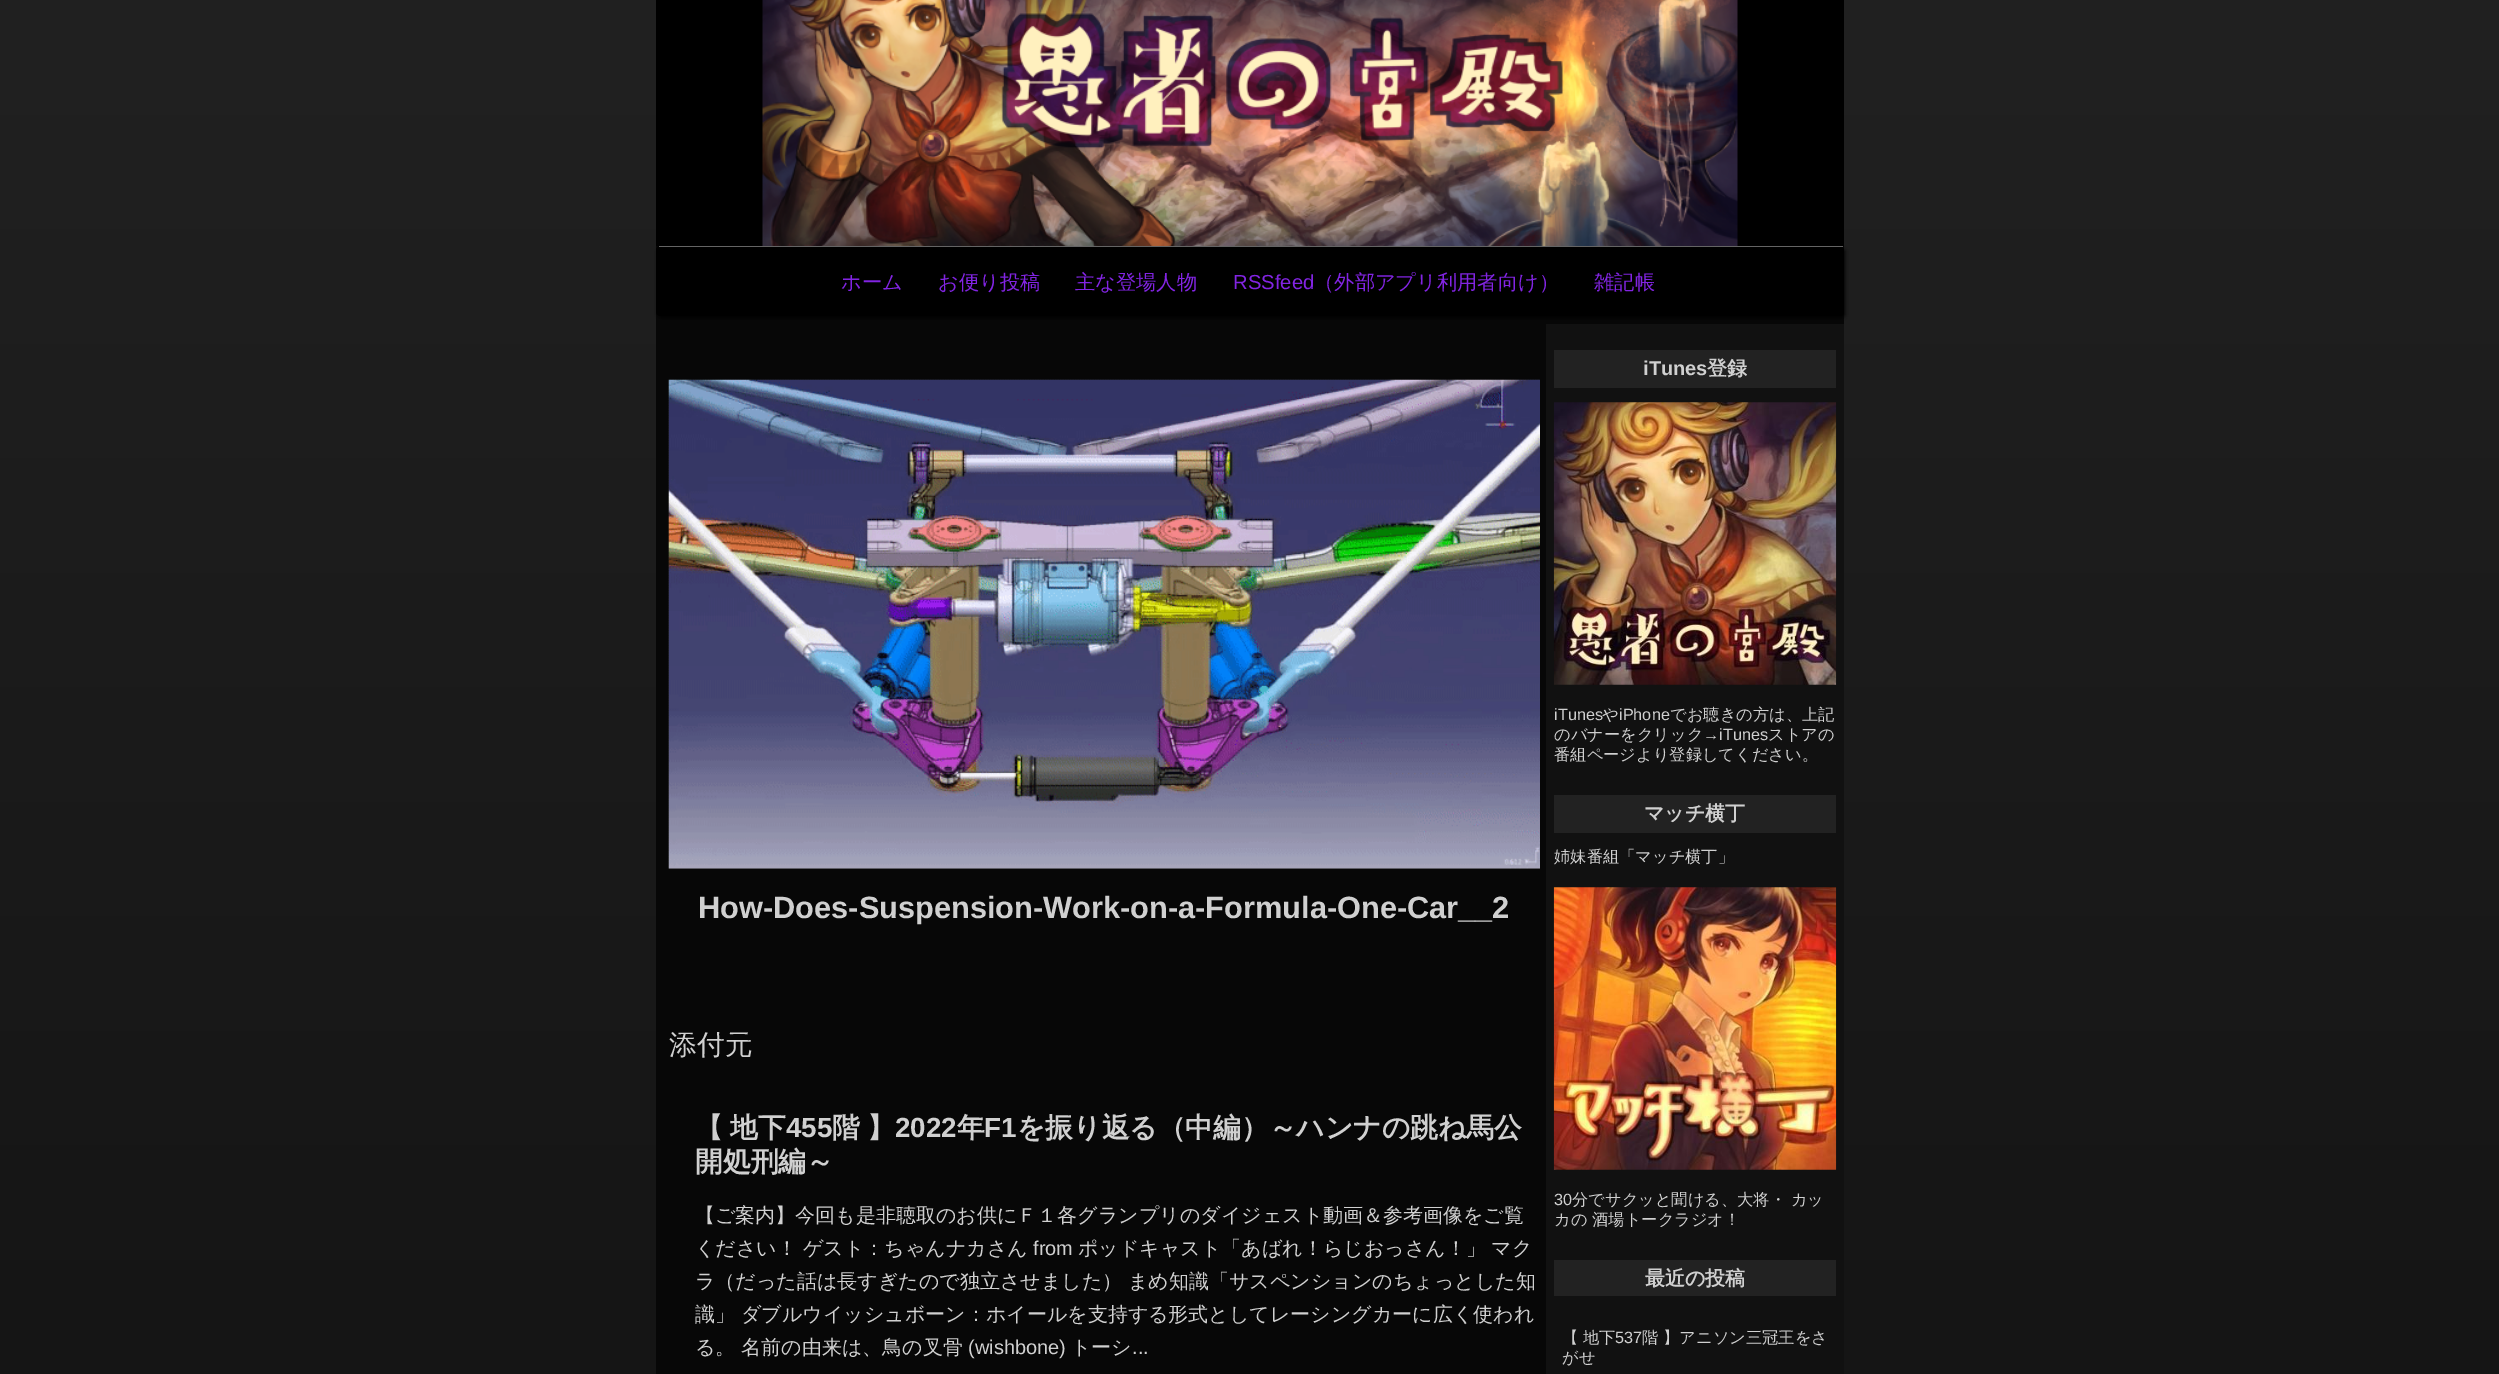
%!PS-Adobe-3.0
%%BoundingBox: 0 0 2499 1374
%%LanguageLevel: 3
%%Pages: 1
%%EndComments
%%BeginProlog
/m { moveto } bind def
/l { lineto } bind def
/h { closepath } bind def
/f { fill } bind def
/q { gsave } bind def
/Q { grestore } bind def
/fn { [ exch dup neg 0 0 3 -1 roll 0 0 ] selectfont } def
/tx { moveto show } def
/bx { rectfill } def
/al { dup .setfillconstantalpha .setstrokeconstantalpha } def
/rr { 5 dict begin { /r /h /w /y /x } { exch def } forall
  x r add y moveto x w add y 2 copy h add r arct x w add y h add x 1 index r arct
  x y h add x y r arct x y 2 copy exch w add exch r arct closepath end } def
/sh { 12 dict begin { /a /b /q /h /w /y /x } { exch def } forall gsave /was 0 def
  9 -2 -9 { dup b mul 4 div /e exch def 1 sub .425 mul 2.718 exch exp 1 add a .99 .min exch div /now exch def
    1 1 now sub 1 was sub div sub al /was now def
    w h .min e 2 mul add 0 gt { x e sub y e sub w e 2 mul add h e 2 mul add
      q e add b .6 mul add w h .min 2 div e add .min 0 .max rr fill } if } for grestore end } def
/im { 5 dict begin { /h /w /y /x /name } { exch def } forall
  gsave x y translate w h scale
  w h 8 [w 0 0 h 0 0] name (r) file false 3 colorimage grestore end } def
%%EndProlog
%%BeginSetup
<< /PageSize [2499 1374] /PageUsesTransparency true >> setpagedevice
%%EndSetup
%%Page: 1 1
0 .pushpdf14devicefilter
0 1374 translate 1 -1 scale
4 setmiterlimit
1 setgray
0 0 2499 1374 bx
q 0 0 m 2499 0 l 2499 1374 l 0 1374 l h clip newpath
<< /ShadingType 2 /ColorSpace /DeviceRGB /Coords [0 -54 0 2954] /Extend [true true] /Function << /FunctionType 2 /Domain [0 1] /C0 [0.133 0.133 0.133] /C1 [0.027 0.027 0.027] /N 1 >> >> shfill Q
0.027 setgray
656 246 1188 1128 bx
0 setgray
658 248 1187 70 4 2 1 sh
656 0 1188 246 bx
(image0.raw) 762 0 976 246 im
656 246 1188 70 4 rr f
0.392 setgray
659 246 1184 1 bx
/WenQuanYiZenHei-Medium 20.25 fn
0.51 0.141 0.89 setrgbcolor
(ホーム) 841 289 tx
(お便り投稿) 938 289 tx
(主な登場人物) 1075 289 tx
/LiberationSans-Regular 20.25 fn
(RSSfeed) 1233 289 tx
/WenQuanYiZenHei-Medium 20.25 fn
(（外部アプリ利用者向け）) 1314 289 tx
(雑記帳) 1594 289 tx
(image1.raw) 668 379 872 490 im
(image2.raw) 668 379 872 490 im
/LiberationSans-Bold 30.75 fn
0.816 setgray
(How-Does-Suspension-Work-on-a-Formula-One-Car__2) 698 918 tx
/WenQuanYiZenHei-Medium 27.75 fn
(添付元) 669 1054 tx
/WenQuanYiZenHei-Bold 27.75 fn
695 1137 m -1 0 32 (【 地下) widthshow
/LiberationSans-Bold 27.75 fn
(455) 786 1137 tx
/WenQuanYiZenHei-Bold 27.75 fn
832 1137 m -1 0 32 (階 】) widthshow
/LiberationSans-Bold 27.75 fn
(2022) 895 1137 tx
/WenQuanYiZenHei-Bold 27.75 fn
(年) 957 1137 tx
/LiberationSans-Bold 27.75 fn
(F1) 984 1137 tx
/WenQuanYiZenHei-Bold 27.75 fn
(を振り返る（中編）～ハンナの跳ね馬公) 1017 1137 tx
(開処刑編～) 695 1171 tx
/WenQuanYiZenHei-Medium 20 fn
(【ご案内】今回も是非聴取のお供にＦ１各グランプリのダイジェスト動画＆参考画像をご覧) 695 1222 tx
(ください！ ゲスト：ちゃんナカさん) 695 1255 tx
/LiberationSans-Regular 20 fn
(from) 1033 1255 tx
/WenQuanYiZenHei-Medium 20 fn
(ポッドキャスト「あばれ！らじおっさん！」 マク) 1078 1255 tx
(ラ（だった話は長すぎたので独立させました） まめ知識「サスペンションのちょっとした知) 695 1288 tx
(識」 ダブルウイッシュボーン：ホイールを支持する形式としてレーシングカーに広く使われ) 695 1321 tx
(る。 名前の由来は、鳥の叉骨) 695 1354 tx
/LiberationSans-Regular 20 fn
(\(wishbone\)) 968 1354 tx
/WenQuanYiZenHei-Medium 20 fn
(トーシ) 1071 1354 tx
/LiberationSans-Regular 20 fn
(...) 1132 1354 tx
0.067 setgray
1546 324 298 1050 bx
0.133 setgray
1554 350 282 38 bx
/LiberationSans-Bold 20 fn
0.816 setgray
(iTunes) 1643 375 tx
/WenQuanYiZenHei-Bold 20 fn
(登録) 1707 375 tx
(image3.raw) 1553 402 284 283 im
/LiberationSans-Regular 16.25 fn
(iTunes) 1554 720 tx
/WenQuanYiZenHei-Medium 16.25 fn
(や) 1602 720 tx
/LiberationSans-Regular 16.25 fn
(iPhone) 1619 720 tx
/WenQuanYiZenHei-Medium 16.25 fn
(でお聴きの方は、上記) 1670 720 tx
(のバナーをクリック) 1554 740 tx
/LiberationSans-Regular 16.25 fn
(→iTunes) 1703 740 tx
/WenQuanYiZenHei-Medium 16.25 fn
(ストアの) 1768 740 tx
(番組ページより登録してください。) 1554 760 tx
0.133 setgray
1554 795 282 38 bx
/WenQuanYiZenHei-Bold 20 fn
0.816 setgray
(マッチ横丁) 1644 820 tx
/WenQuanYiZenHei-Medium 16.25 fn
(姉妹番組「マッチ横丁」) 1554 862 tx
(image4.raw) 1553 887 284 283 im
/LiberationSans-Regular 16.25 fn
(30) 1554 1205 tx
/WenQuanYiZenHei-Medium 16.25 fn
(分でサクッと聞ける、大将・ カッ) 1572 1205 tx
(カの 酒場トークラジオ！) 1554 1225 tx
0.133 setgray
1554 1260 282 36 bx
/WenQuanYiZenHei-Bold 20 fn
0.816 setgray
(最近の投稿) 1645 1285 tx
/WenQuanYiZenHei-Medium 16.25 fn
(【 地下) 1562 1343 tx
/LiberationSans-Regular 16.25 fn
(537) 1615 1343 tx
/WenQuanYiZenHei-Medium 16.25 fn
(階 】アニソン三冠王をさ) 1642 1343 tx
(がせ) 1562 1363 tx
.poppdf14devicefilter showpage
%%EOF
